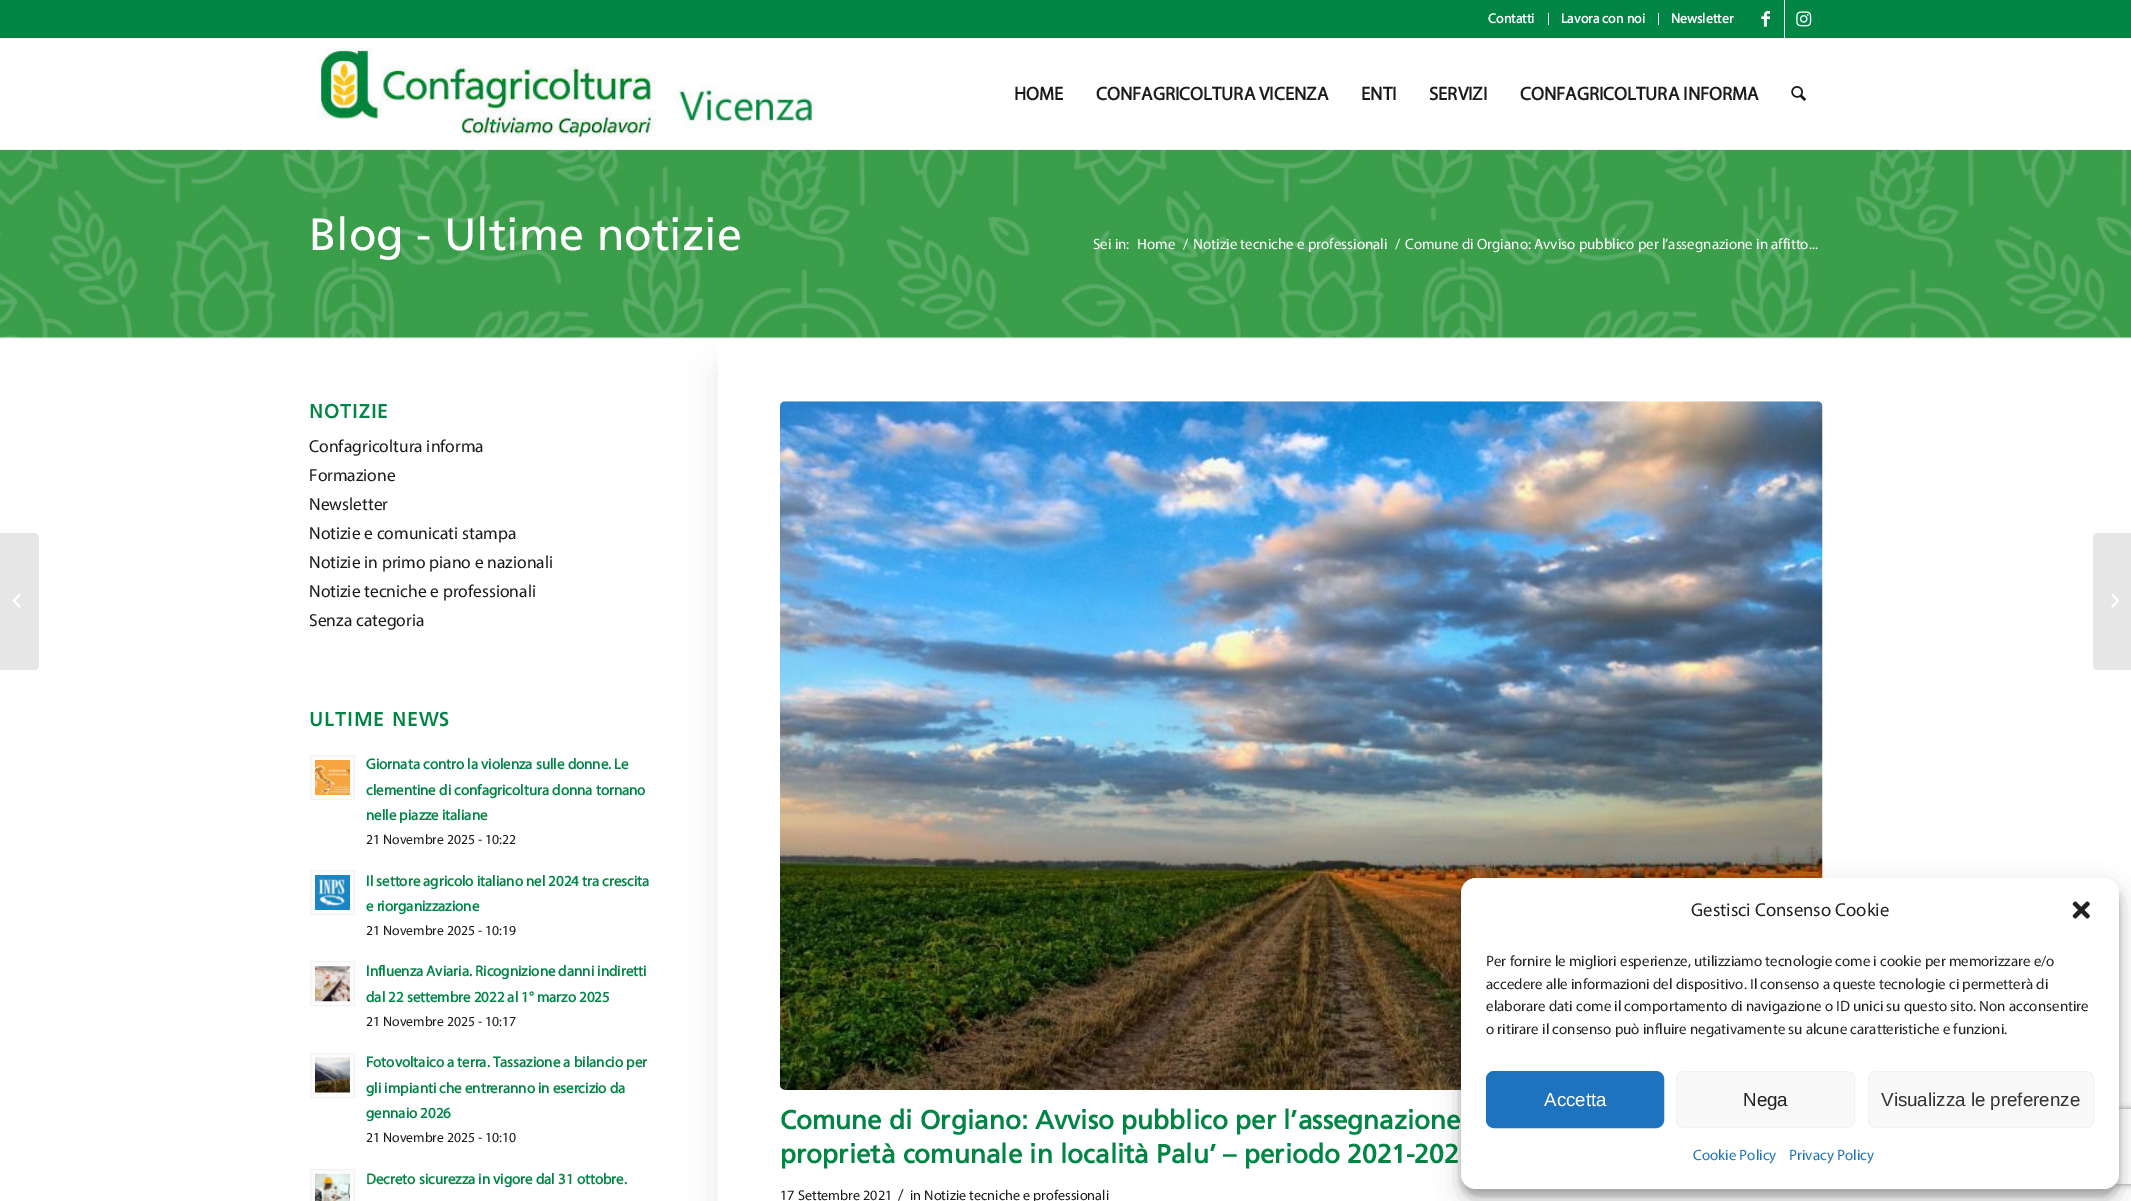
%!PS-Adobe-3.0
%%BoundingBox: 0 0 2131 1201
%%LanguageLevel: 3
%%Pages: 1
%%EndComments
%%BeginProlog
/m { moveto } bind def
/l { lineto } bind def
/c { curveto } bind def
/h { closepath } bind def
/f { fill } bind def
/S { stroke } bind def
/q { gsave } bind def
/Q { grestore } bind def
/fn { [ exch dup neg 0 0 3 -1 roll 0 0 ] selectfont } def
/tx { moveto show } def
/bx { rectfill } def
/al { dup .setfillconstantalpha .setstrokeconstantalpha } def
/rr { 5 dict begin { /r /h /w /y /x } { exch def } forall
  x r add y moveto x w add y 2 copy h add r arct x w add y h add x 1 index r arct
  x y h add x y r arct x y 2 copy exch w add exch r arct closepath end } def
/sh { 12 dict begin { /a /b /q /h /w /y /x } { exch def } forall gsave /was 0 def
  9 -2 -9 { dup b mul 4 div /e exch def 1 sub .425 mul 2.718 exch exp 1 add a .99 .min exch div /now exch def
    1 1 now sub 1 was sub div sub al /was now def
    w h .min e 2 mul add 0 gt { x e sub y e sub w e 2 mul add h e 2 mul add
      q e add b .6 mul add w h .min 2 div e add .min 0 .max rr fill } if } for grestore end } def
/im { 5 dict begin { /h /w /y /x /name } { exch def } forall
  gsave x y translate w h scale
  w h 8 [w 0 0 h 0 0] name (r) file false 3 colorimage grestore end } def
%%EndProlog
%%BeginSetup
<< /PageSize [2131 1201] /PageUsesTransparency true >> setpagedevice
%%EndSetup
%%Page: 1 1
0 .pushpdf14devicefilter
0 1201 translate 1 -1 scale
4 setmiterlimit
1 setgray
0 0 2131 1201 bx
0 0.522 0.271 setrgbcolor
0 0 2131 38 bx
0.949 setgray
0 38 2131 1 bx
1548 13 1 12 bx
/Myriad-Bold 13.75 fn
1 setgray
(Contatti) 1488 23 tx
0.949 setgray
1658 13 1 12 bx
1 setgray
(Lavora con noi) 1561 23 tx
(Newsletter) 1671 23 tx
0.949 setgray
1784 0 1 38 bx
(image0.raw) 1761 11 9 16 im
(image1.raw) 1796 11 16 16 im
0 337 2131 2 bx
(image5.raw) 0 148 2131 190 im
0 149 2131 1 bx
(image2.raw) 319 47 497 91 im
/Myriad-Bold 18.75 fn
0.102 setgray
(HOME) 1014 100 tx
(CONFAGRICOLTURA VICENZA) 1096 100 tx
(ENTI) 1361 100 tx
(SERVIZI) 1429 100 tx
(CONFAGRICOLTURA INFORMA) 1520 100 tx
(image3.raw) 1791 86 15 15 im
0.95 al
1 setgray
0 148 2131 1 bx
1 al
0.902 setgray
0 533 m 34 533 l 37 533 39 535 39 538 c 39 665 l 39 668 37 670 34 670 c 0 670 l h f
(image4.raw) 12 594 9 14 im
/Frutiger-Regular 45 fn
1 setgray
(Blog - Ultime notizie) 309 250 tx
/Myriad-Regular 15 fn
(Sei in:) 1093 249 tx
(Home) 1137 249 tx
(/) 1183 249 tx
(Notizie tecniche e professionali) 1193 249 tx
(/) 1395 249 tx
(Comune di Orgiano: Avviso pubblico per l’assegnazione in affitto...) 1405 249 tx
/Frutiger-Bold 19.25 fn
0 0.522 0.271 setrgbcolor
309 418 m 1.25 0 (NOTIZIE) ashow
/Myriad-Regular 17.5 fn
0.102 setgray
(Confagricoltura informa) 309 452 tx
(Formazione) 309 481 tx
(Newsletter) 309 510 tx
(Notizie e comunicati stampa) 309 539 tx
(Notizie in primo piano e nazionali) 309 568 tx
(Notizie tecniche e professionali) 309 597 tx
(Senza categoria) 309 626 tx
/Frutiger-Bold 19.25 fn
0 0.522 0.271 setrgbcolor
309 726 m 1.25 0 (ULTIME NEWS) ashow
0.988 setgray
310.5 755.5 m 354.5 755.5 l 354.5 799.5 l 310.5 799.5 l h q f Q
0.949 setgray
S
(image6.raw) 315 760 35 35 im
/Myriad-Bold 14.9 fn
0 0.522 0.271 setrgbcolor
(Giornata contro la violenza sulle donne. Le) 366 769 tx
(clementine di confagricoltura donna tornano) 366 795 tx
(nelle piazze italiane) 366 820 tx
/Myriad-Regular 13.75 fn
0.102 setgray
(21 Novembre 2025 - 10:22) 366 844 tx
0.988 setgray
310.5 870.5 m 354.5 870.5 l 354.5 914.5 l 310.5 914.5 l h q f Q
0.949 setgray
S
(image7.raw) 315 875 35 35 im
/Myriad-Bold 14.9 fn
0 0.522 0.271 setrgbcolor
(Il settore agricolo italiano nel 2024 tra crescita) 366 886 tx
(e riorganizzazione) 366 911 tx
/Myriad-Regular 13.75 fn
0.102 setgray
(21 Novembre 2025 - 10:19) 366 935 tx
0.988 setgray
310.5 961.5 m 354.5 961.5 l 354.5 1005.5 l 310.5 1005.5 l h q f Q
0.949 setgray
S
(image8.raw) 315 966 35 36 im
/Myriad-Bold 14.9 fn
0 0.522 0.271 setrgbcolor
(Influenza Aviaria. Ricognizione danni indiretti) 366 976 tx
(dal 22 settembre 2022 al 1° marzo 2025) 366 1002 tx
/Myriad-Regular 13.75 fn
0.102 setgray
(21 Novembre 2025 - 10:17) 366 1026 tx
0.988 setgray
310.5 1053.5 m 354.5 1053.5 l 354.5 1097.5 l 310.5 1097.5 l h q f Q
0.949 setgray
S
(image9.raw) 315 1057 35 36 im
/Myriad-Bold 14.9 fn
0 0.522 0.271 setrgbcolor
(Fotovoltaico a terra. Tassazione a bilancio per) 366 1067 tx
(gli impianti che entreranno in esercizio da) 366 1093 tx
(gennaio 2026) 366 1118 tx
/Myriad-Regular 13.75 fn
0.102 setgray
(21 Novembre 2025 - 10:10) 366 1142 tx
0.988 setgray
310.5 1169.5 m 354.5 1169.5 l 354.5 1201.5 l 310.5 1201.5 l h q f Q
0.949 setgray
S
(image10.raw) 315 1173 35 28 im
/Myriad-Bold 14.9 fn
0 0.522 0.271 setrgbcolor
(Decreto sicurezza in vigore dal 31 ottobre.) 366 1184 tx
q
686 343 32 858 rectclip
0.914 0.914 0.922 setrgbcolor
718 370 1105 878 0 15.5 1 sh
Q
(image11.raw) 780 401 1043 689 im
/Frutiger-Bold 26.25 fn
(Comune di Orgiano: Avviso pubblico per l’assegnazione) 780 1129 tx
(proprietà comunale in località Palu’ – periodo 2021-202) 780 1163 tx
/Myriad-Regular 14.25 fn
0.102 setgray
(17 Settembre 2021) 780 1200 tx
/Myriad-Regular 16 fn
(/) 898 1200 tx
/Myriad-Regular 14.25 fn
(in Notizie tecniche e professionali) 910 1200 tx
0.902 setgray
2098 533 m 2131 533 l 2131 670 l 2098 670 l 2095 670 2093 668 2093 665 c 2093 538 l 2093 535 2095 533 2098 533 c h f
(image12.raw) 2111 594 8 14 im
0 setgray
1461 885 658 311 15 4 0.23 sh
1461 890 658 311 15 12.5 0.19 sh
q
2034 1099 m 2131 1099 l 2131 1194 l 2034 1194 l h 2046.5 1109 m 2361.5 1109 l 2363 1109 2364 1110 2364 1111.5 c 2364 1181.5 l 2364 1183 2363 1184 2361.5 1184 c 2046.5 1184 l 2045 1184 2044 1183 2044 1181.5 c 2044 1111.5 l 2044 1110 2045 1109 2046.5 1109 c h eoclip newpath
0.502 setgray
2044 1109 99 75 2.5 3 1 sh
Q
1 setgray
1461 878 658 311 15 rr f
/Myriad-Regular 18.75 fn
0.133 setgray
(Gestisci Consenso Cookie) 1691 916 tx
(image13.raw) 2072 901 18 18 im
/Myriad-Regular 15 fn
(Per fornire le migliori esperienze, utilizziamo tecnologie come i cookie per memorizzare e/o) 1486 966 tx
(accedere alle informazioni del dispositivo. Il consenso a queste tecnologie ci permetterà di) 1486 989 tx
(elaborare dati come il comportamento di navigazione o ID unici su questo sito. Non acconsentire) 1486 1011 tx
(o ritirare il consenso può influire negativamente su alcune caratteristiche e funzioni.) 1486 1034 tx
0.118 0.451 0.745 setrgbcolor
1486.5 1071.5 177 56 7.5 rr q f Q
S
/LiberationSans-Regular 18.75 fn
1 setgray
(Accetta) 1544 1106 tx
0.976 setgray
1676.5 1071.5 178 56 7.5 rr q f Q
0.949 setgray
S
0.133 setgray
(Nega) 1743 1106 tx
0.976 setgray
1868.5 1071.5 225 56 7.5 rr q f Q
0.949 setgray
S
0.2 setgray
(Visualizza le preferenze) 1881 1106 tx
/Myriad-Regular 15 fn
0.118 0.451 0.745 setrgbcolor
(Cookie Policy) 1693 1160 tx
(Privacy Policy) 1789 1160 tx
.poppdf14devicefilter showpage
%%EOF
